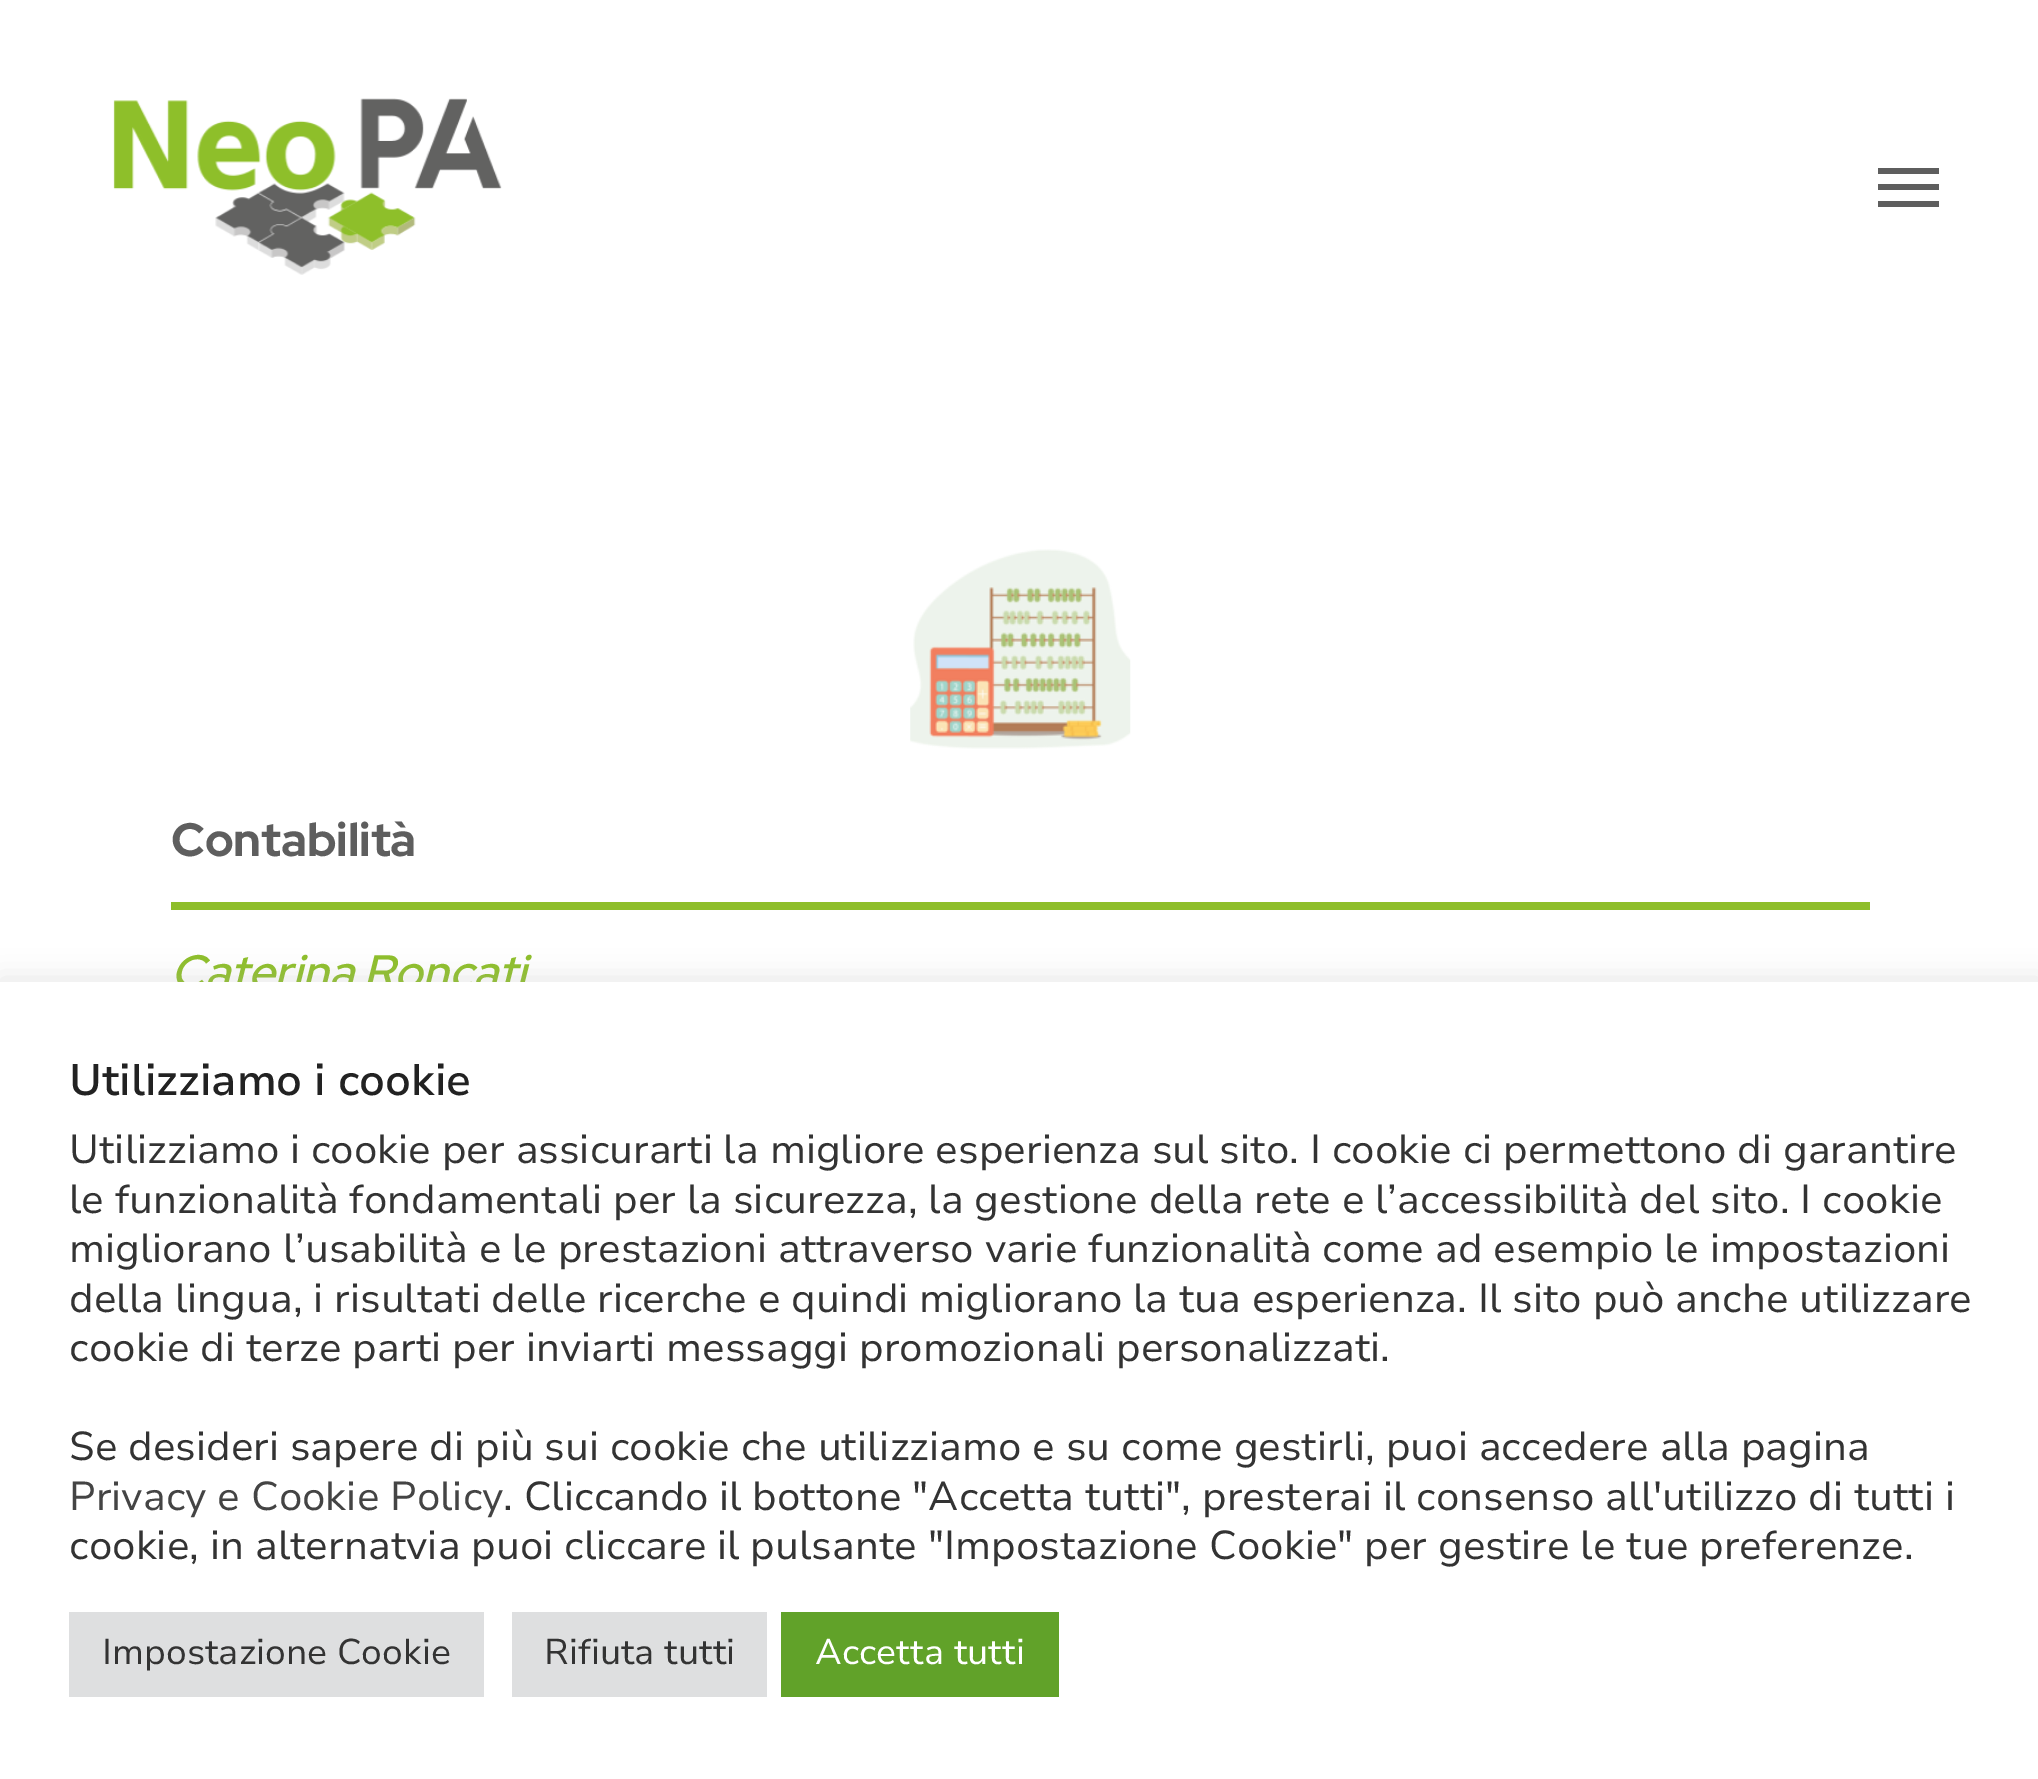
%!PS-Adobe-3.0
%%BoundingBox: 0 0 2038 1779
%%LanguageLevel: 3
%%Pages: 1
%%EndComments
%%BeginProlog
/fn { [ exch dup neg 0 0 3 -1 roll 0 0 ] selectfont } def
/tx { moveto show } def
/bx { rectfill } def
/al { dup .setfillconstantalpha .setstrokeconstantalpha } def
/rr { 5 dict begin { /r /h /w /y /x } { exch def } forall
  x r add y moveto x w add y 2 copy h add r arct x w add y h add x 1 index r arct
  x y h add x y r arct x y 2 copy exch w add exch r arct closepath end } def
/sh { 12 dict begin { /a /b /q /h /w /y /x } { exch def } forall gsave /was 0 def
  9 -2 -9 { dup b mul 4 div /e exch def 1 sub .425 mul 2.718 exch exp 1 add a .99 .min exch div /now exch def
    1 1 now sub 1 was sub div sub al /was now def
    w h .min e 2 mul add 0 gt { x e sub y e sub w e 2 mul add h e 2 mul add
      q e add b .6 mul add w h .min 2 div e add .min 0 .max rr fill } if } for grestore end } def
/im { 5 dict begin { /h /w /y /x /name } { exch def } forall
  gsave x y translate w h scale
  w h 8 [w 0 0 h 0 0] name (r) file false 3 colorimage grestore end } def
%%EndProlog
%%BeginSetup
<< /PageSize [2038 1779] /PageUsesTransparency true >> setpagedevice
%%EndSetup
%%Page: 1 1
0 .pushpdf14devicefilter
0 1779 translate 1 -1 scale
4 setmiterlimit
1 setgray
0 0 2038 1779 bx
(image0.raw) 113 98 389 177 im
0.369 setgray
1878 184 61 6 bx
1878 168 61 6 bx
1878 201 61 6 bx
(image1.raw) 910 549 221 200 im
/RedHatDisplay-Bold 46.75 fn
(Contabilità) 171 856 tx
0.557 0.745 0.165 setrgbcolor
171 902 1699 8 bx
/RedHatDisplay-SemiBoldItalic 46.75 fn
(Caterina Roncati) 171 988 tx
0.675 0.671 0.671 setrgbcolor
0 979 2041 798 0 14 0.3 sh
1 setgray
0 982 2038 797 bx
/NunitoSans-SemiBold 44 fn
0.133 setgray
(Utilizziamo i cookie) 69 1095 tx
/NunitoSans-Regular 40.35 fn
0.2 setgray
(Utilizziamo i cookie per assicurarti la migliore esperienza sul sito. I cookie ci permettono di garantire) 69 1163 tx
(le funzionalità fondamentali per la sicurezza, la gestione della rete e l’accessibilità del sito. I cookie) 69 1213 tx
(migliorano l’usabilità e le prestazioni attraverso varie funzionalità come ad esempio le impostazioni) 69 1262 tx
(della lingua, i risultati delle ricerche e quindi migliorano la tua esperienza. Il sito può anche utilizzare) 69 1312 tx
(cookie di terze parti per inviarti messaggi promozionali personalizzati.) 69 1361 tx
(Se desideri sapere di più sui cookie che utilizziamo e su come gestirli, puoi accedere alla pagina) 69 1460 tx
0.267 setgray
(Privacy e Cookie Policy) 69 1510 tx
0.2 setgray
(. Cliccando il bottone "Accetta tutti", presterai il consenso all'utilizzo di tutti i) 503 1510 tx
(cookie, in alternatvia puoi cliccare il pulsante "Impostazione Cookie" per gestire le tue preferenze.) 69 1559 tx
0.871 0.875 0.878 setrgbcolor
69 1612 415 85 bx
/NunitoSans-Regular 35.75 fn
0.2 setgray
(Impostazione Cookie) 102 1664 tx
0.871 0.875 0.878 setrgbcolor
512 1612 255 85 bx
0.2 setgray
(Rifiuta tutti) 544 1664 tx
0.38 0.635 0.161 setrgbcolor
781 1612 278 85 bx
1 setgray
(Accetta tutti) 815 1664 tx
.poppdf14devicefilter showpage
%%EOF
